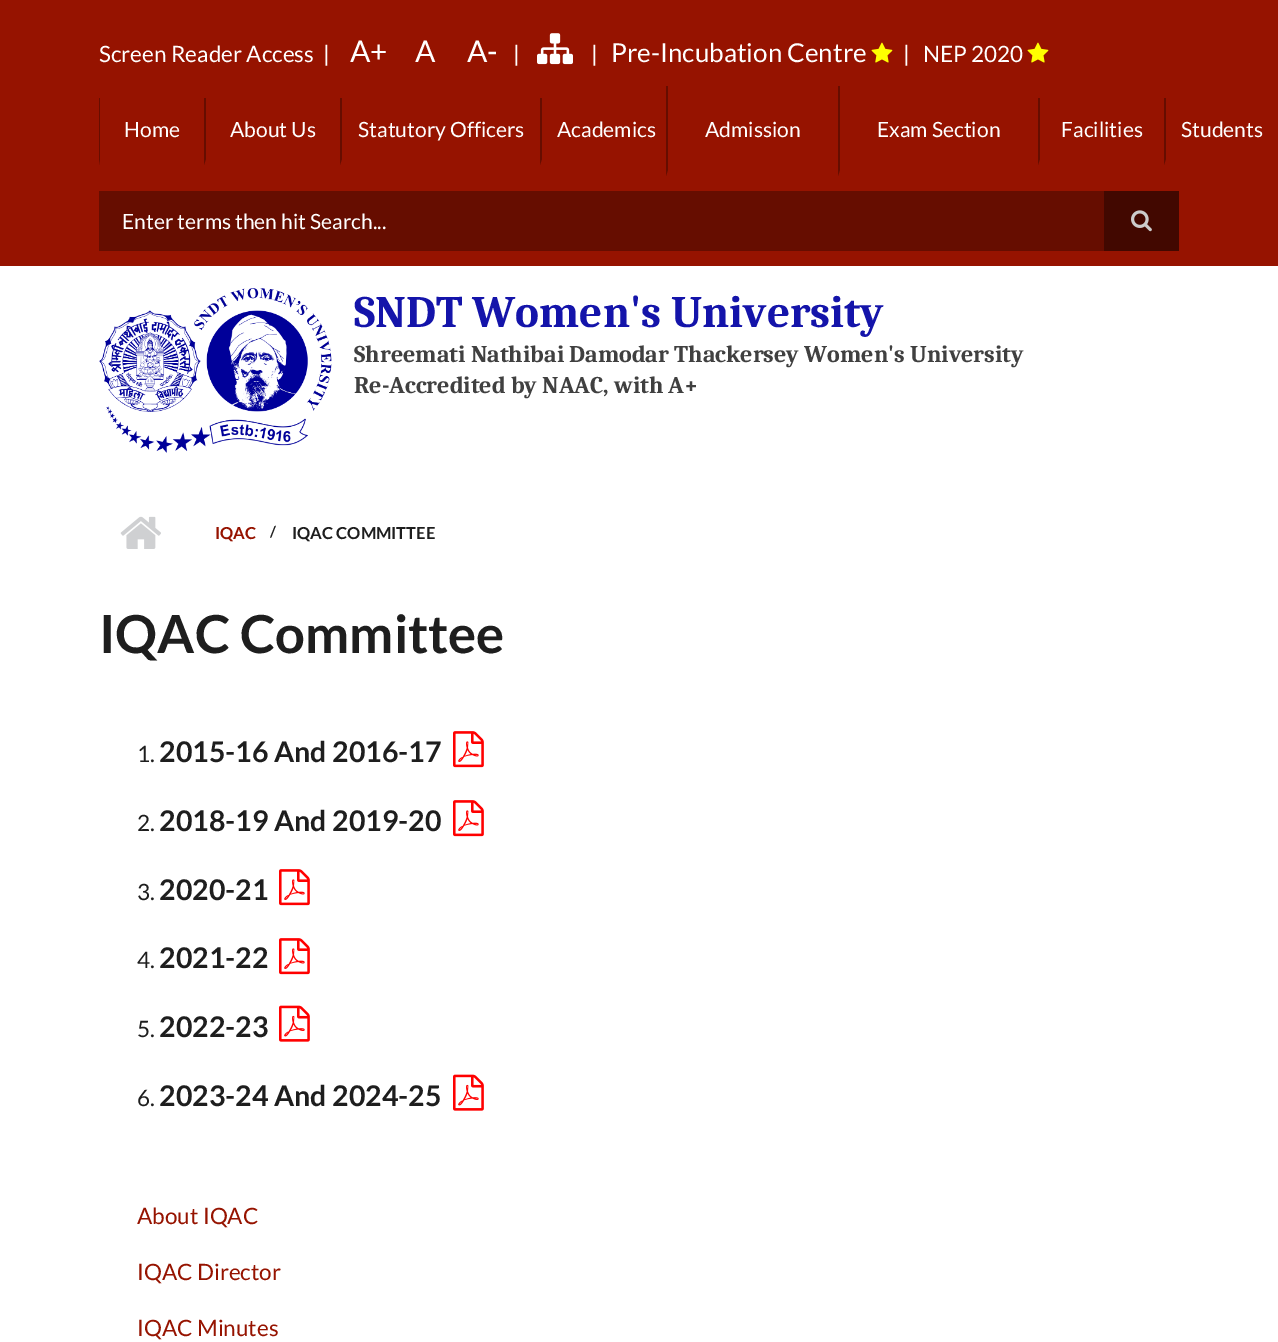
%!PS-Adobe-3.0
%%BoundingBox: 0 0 1278 1342
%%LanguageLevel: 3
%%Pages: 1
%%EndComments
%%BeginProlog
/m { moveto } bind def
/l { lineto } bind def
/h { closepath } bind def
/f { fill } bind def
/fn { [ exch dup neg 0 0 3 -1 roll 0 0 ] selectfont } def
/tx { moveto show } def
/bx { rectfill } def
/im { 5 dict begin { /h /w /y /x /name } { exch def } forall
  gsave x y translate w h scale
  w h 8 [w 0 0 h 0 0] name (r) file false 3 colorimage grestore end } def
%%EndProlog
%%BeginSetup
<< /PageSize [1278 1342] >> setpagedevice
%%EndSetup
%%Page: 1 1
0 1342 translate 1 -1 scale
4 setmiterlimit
1 setgray
0 0 1278 1342 bx
0.588 0.075 0 setrgbcolor
0 0 1278 266 bx
/Lato-Regular 22.5 fn
1 setgray
(Screen Reader Access) 99 62 tx
(|) 323 62 tx
/Lato-Regular 30 fn
(A+) 350 62 tx
(A) 415 62 tx
(A-) 467 62 tx
/Lato-Regular 22.5 fn
(|) 513 62 tx
(image0.raw) 537 33 36 32 im
(|) 591 62 tx
/Lato-Regular 26 fn
(Pre-Incubation Centre) 611 62 tx
(image1.raw) 871 42 22 21 im
/Lato-Regular 22.5 fn
(|) 903 62 tx
(NEP 2020) 923 62 tx
(image1.raw) 1027 42 22 21 im
0.4 0.051 0 setrgbcolor
99 165 m 99 98 l 100 98 l 100 159 l h f
/Lato-Regular 21 fn
1 setgray
(Home) 124 137 tx
0.4 0.051 0 setrgbcolor
204 165 m 204 98 l 206 98 l 206 159 l h f
1 setgray
(About Us) 230 137 tx
0.4 0.051 0 setrgbcolor
340 165 m 340 98 l 342 98 l 342 159 l h f
1 setgray
(Statutory Officers) 358 137 tx
0.4 0.051 0 setrgbcolor
540 165 m 540 98 l 542 98 l 542 159 l h f
1 setgray
(Academics) 557 137 tx
0.4 0.051 0 setrgbcolor
666 176 m 666 86 l 668 86 l 668 170 l h f
1 setgray
(Admission) 705 137 tx
0.4 0.051 0 setrgbcolor
838 176 m 838 86 l 840 86 l 840 170 l h f
1 setgray
(Exam Section) 877 137 tx
0.4 0.051 0 setrgbcolor
1038 165 m 1038 98 l 1040 98 l 1040 159 l h f
1 setgray
(Facilities) 1061 137 tx
0.4 0.051 0 setrgbcolor
1164 165 m 1164 98 l 1166 98 l 1166 159 l h f
1 setgray
(Students) 1181 137 tx
0.4 0.051 0 setrgbcolor
99 191 1005 60 bx
1 setgray
(Enter terms then hit Search...) 122 229 tx
0.259 0.031 0 setrgbcolor
1104 191 75 60 bx
(image2.raw) 1131 210 21 22 im
(image3.raw) 99 288 233 165 im
/Caladea-Bold 45 fn
0.078 0.078 0.667 setrgbcolor
(SNDT Women's University) 354 327 tx
/Caladea-Bold 24 fn
0.251 setgray
(Shreemati Nathibai Damodar Thackersey Women's University) 354 362 tx
(Re-Accredited by NAAC, with A+) 354 393 tx
(image4.raw) 120 516 41 33 im
/Lato-Bold 16.5 fn
0.588 0.075 0 setrgbcolor
(IQAC) 215 539 tx
/Lato-Bold 15 fn
0.118 setgray
(/) 270 537 tx
/Lato-Bold 16.5 fn
(IQAC COMMITTEE) 292 539 tx
/Lato-Bold 52.5 fn
(IQAC Committee) 99 653 tx
/Lato-Regular 22.5 fn
(1.) 137 762 tx
/Lato-Bold 28.5 fn
(2015-16 And 2016-17) 159 762 tx
(image5.raw) 453 731 31 37 im
/Lato-Regular 22.5 fn
(2.) 137 831 tx
/Lato-Bold 28.5 fn
(2018-19 And 2019-20) 159 831 tx
(image5.raw) 453 800 31 37 im
/Lato-Regular 22.5 fn
(3.) 137 900 tx
/Lato-Bold 28.5 fn
(2020-21) 159 900 tx
(image5.raw) 279 869 31 37 im
/Lato-Regular 22.5 fn
(4.) 137 968 tx
/Lato-Bold 28.5 fn
(2021-22) 159 968 tx
(image5.raw) 279 938 31 37 im
/Lato-Regular 22.5 fn
(5.) 137 1037 tx
/Lato-Bold 28.5 fn
(2022-23) 159 1037 tx
(image6.raw) 279 1005 31 37 im
/Lato-Regular 22.5 fn
(6.) 137 1106 tx
/Lato-Bold 28.5 fn
(2023-24 And 2024-25) 159 1106 tx
(image6.raw) 453 1074 31 37 im
/Lato-Regular 22.5 fn
0.588 0.075 0 setrgbcolor
(About IQAC) 137 1224 tx
(IQAC Director) 137 1280 tx
(IQAC Minutes) 137 1336 tx
showpage
%%EOF
